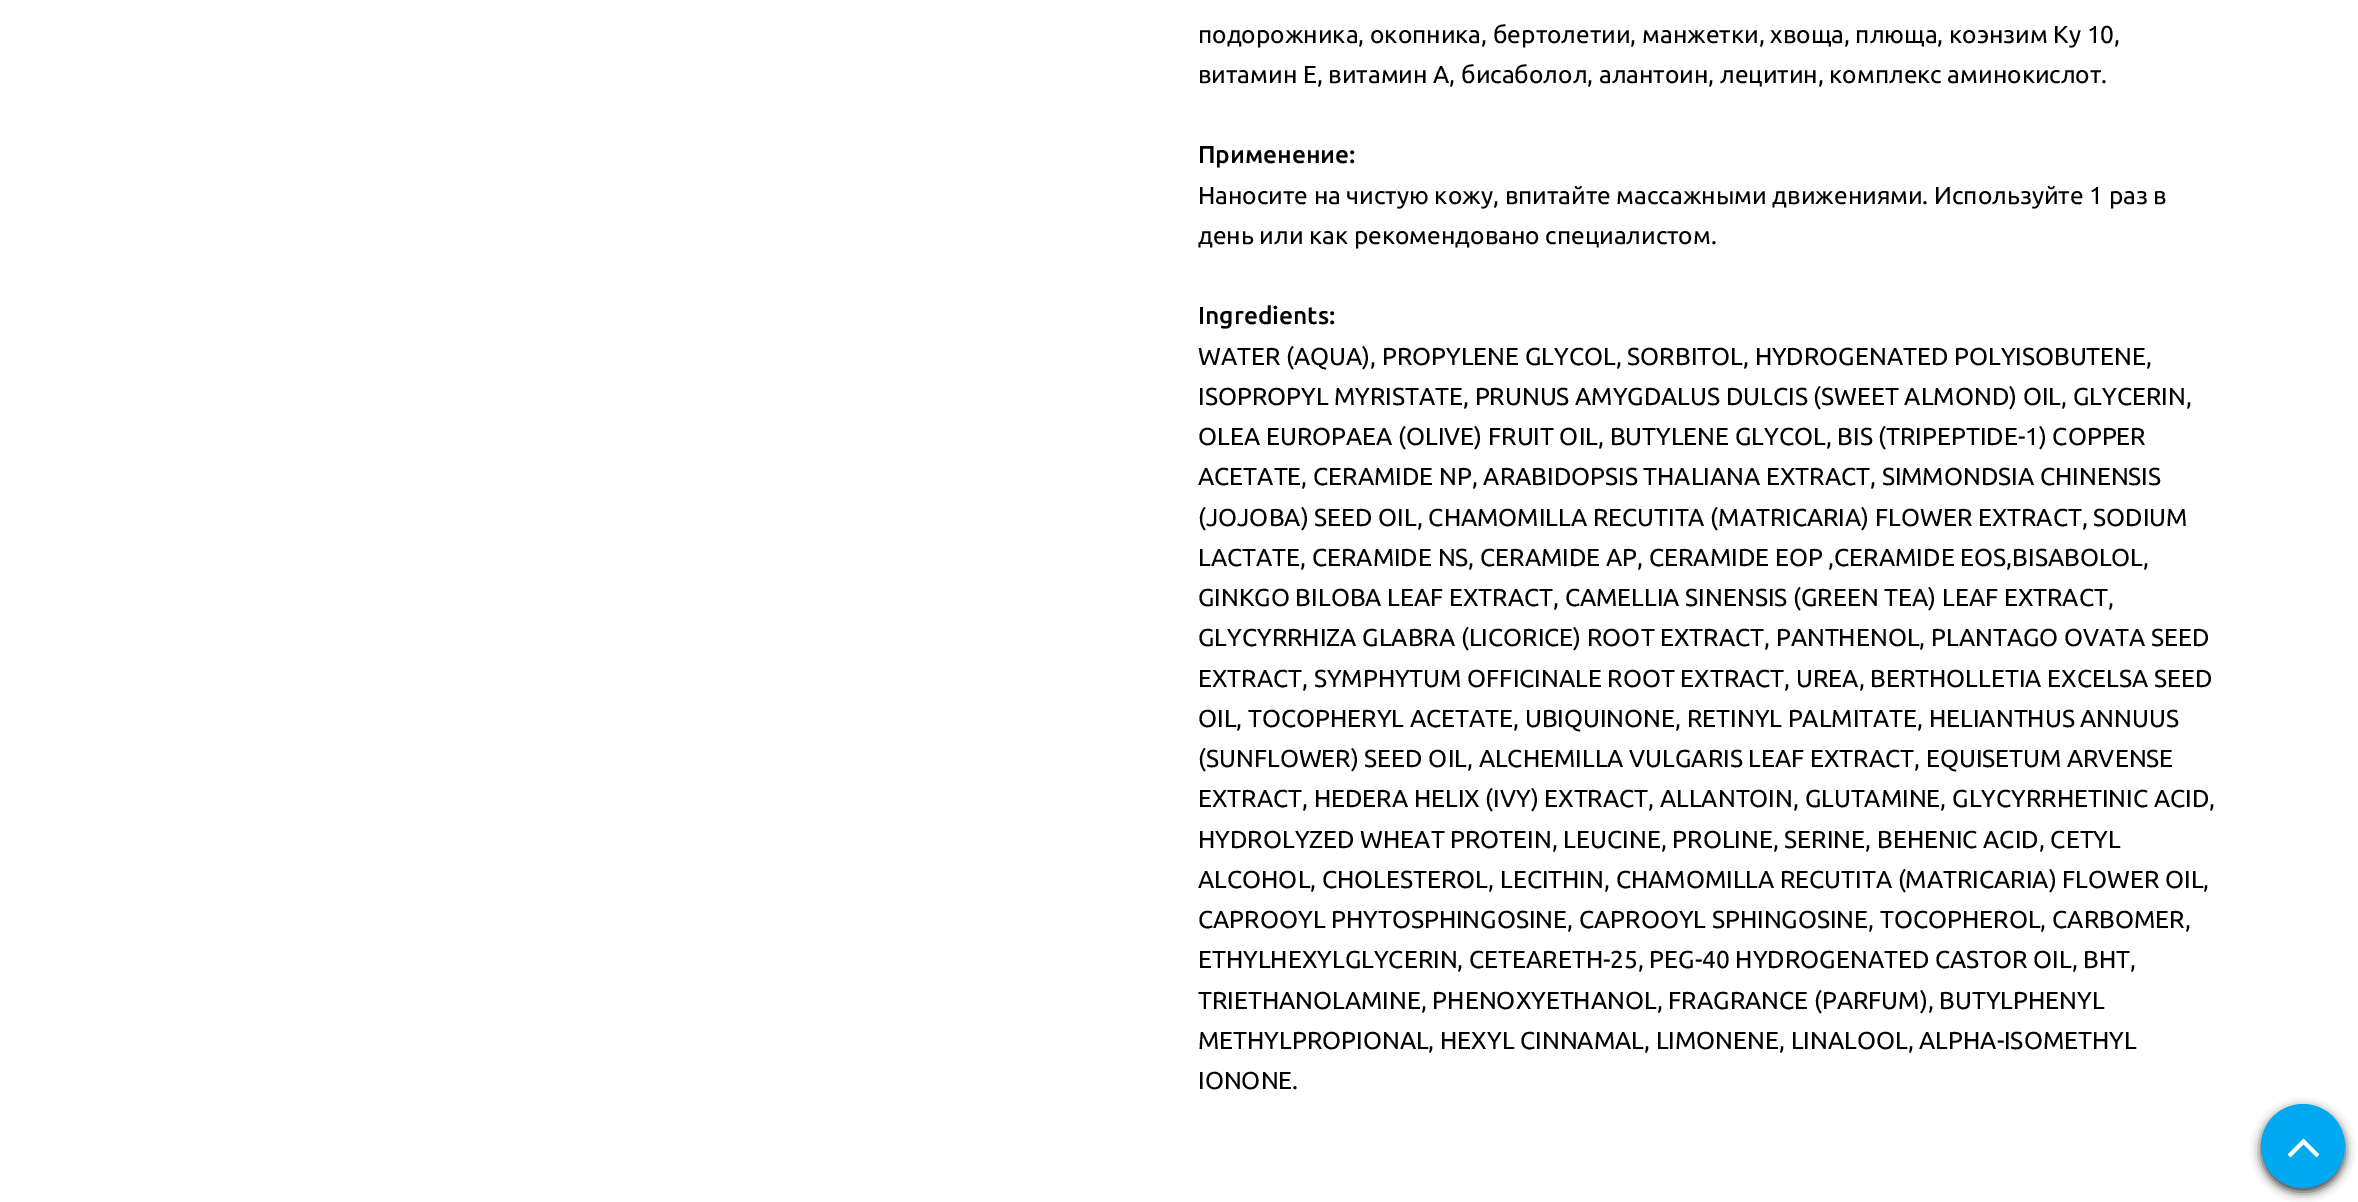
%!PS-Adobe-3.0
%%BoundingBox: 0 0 2358 1202
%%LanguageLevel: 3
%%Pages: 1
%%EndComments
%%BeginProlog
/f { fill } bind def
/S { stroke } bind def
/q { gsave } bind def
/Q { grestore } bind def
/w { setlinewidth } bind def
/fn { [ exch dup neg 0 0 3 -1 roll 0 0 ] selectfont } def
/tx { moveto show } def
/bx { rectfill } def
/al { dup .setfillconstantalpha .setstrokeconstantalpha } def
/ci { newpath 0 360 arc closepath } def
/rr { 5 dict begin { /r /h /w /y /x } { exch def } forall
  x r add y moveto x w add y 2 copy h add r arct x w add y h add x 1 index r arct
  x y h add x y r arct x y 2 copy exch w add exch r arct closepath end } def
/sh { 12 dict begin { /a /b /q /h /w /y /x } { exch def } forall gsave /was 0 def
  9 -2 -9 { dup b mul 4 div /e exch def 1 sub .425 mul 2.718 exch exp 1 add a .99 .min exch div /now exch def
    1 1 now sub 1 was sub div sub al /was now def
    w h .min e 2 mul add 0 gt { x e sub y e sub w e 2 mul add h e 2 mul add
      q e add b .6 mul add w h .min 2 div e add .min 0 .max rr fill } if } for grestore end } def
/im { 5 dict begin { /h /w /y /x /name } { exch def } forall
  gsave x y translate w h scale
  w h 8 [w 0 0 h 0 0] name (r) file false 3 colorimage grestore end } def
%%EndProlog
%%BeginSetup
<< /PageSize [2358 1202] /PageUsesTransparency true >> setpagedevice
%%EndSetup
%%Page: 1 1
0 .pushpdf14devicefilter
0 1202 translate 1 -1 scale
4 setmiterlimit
1 setgray
0 0 2358 1202 bx
/Ubuntu-Regular 24.5 fn
0 setgray
(подорожника, окопника, бертолетии, манжетки, хвоща, плюща, коэнзим Ку 10,) 1198 43 tx
(витамин Е, витамин А, бисаболол, алантоин, лецитин, комплекс аминокислот.) 1198 83 tx
/Ubuntu-Medium 24.5 fn
(Применение:) 1198 163 tx
/Ubuntu-Regular 24.5 fn
(Наносите на чистую кожу, впитайте массажными движениями. Используйте 1 раз в) 1198 204 tx
(день или как рекомендовано специалистом.) 1198 244 tx
/Ubuntu-Medium 24.5 fn
(Ingredients:) 1198 324 tx
/Ubuntu-Regular 24.5 fn
(WATER \(AQUA\), PROPYLENE GLYCOL, SORBITOL, HYDROGENATED POLYISOBUTENE,) 1198 365 tx
(ISOPROPYL MYRISTATE, PRUNUS AMYGDALUS DULCIS \(SWEET ALMOND\) OIL, GLYCERIN,) 1198 405 tx
(OLEA EUROPAEA \(OLIVE\) FRUIT OIL, BUTYLENE GLYCOL, BIS \(TRIPEPTIDE-1\) COPPER) 1198 445 tx
(ACETATE, CERAMIDE NP, ARABIDOPSIS THALIANA EXTRACT, SIMMONDSIA CHINENSIS) 1198 485 tx
(\(JOJOBA\) SEED OIL, CHAMOMILLA RECUTITA \(MATRICARIA\) FLOWER EXTRACT, SODIUM) 1198 526 tx
(LACTATE, CERAMIDE NS, CERAMIDE AP, CERAMIDE EOP ,CERAMIDE EOS,BISABOLOL,) 1198 566 tx
(GINKGO BILOBA LEAF EXTRACT, CAMELLIA SINENSIS \(GREEN TEA\) LEAF EXTRACT,) 1198 606 tx
(GLYCYRRHIZA GLABRA \(LICORICE\) ROOT EXTRACT, PANTHENOL, PLANTAGO OVATA SEED) 1198 646 tx
(EXTRACT, SYMPHYTUM OFFICINALE ROOT EXTRACT, UREA, BERTHOLLETIA EXCELSA SEED) 1198 687 tx
(OIL, TOCOPHERYL ACETATE, UBIQUINONE, RETINYL PALMITATE, HELIANTHUS ANNUUS) 1198 727 tx
(\(SUNFLOWER\) SEED OIL, ALCHEMILLA VULGARIS LEAF EXTRACT, EQUISETUM ARVENSE) 1198 767 tx
(EXTRACT, HEDERA HELIX \(IVY\) EXTRACT, ALLANTOIN, GLUTAMINE, GLYCYRRHETINIC ACID,) 1198 807 tx
(HYDROLYZED WHEAT PROTEIN, LEUCINE, PROLINE, SERINE, BEHENIC ACID, CETYL) 1198 848 tx
(ALCOHOL, CHOLESTEROL, LECITHIN, CHAMOMILLA RECUTITA \(MATRICARIA\) FLOWER OIL,) 1198 888 tx
(CAPROOYL PHYTOSPHINGOSINE, CAPROOYL SPHINGOSINE, TOCOPHEROL, CARBOMER,) 1198 928 tx
(ETHYLHEXYLGLYCERIN, CETEARETH-25, PEG-40 HYDROGENATED CASTOR OIL, BHT,) 1198 968 tx
(TRIETHANOLAMINE, PHENOXYETHANOL, FRAGRANCE \(PARFUM\), BUTYLPHENYL) 1198 1009 tx
(METHYLPROPIONAL, HEXYL CINNAMAL, LIMONENE, LINALOOL, ALPHA-ISOMETHYL) 1198 1049 tx
(IONONE.) 1198 1089 tx
0.2 setgray
2261 1108 84 84 42 5 1 sh
0 0.663 0.949 setrgbcolor
2303 1146 41 ci q f Q
2 w
S
(image0.raw) 2287 1138 33 20 im
.poppdf14devicefilter showpage
%%EOF
